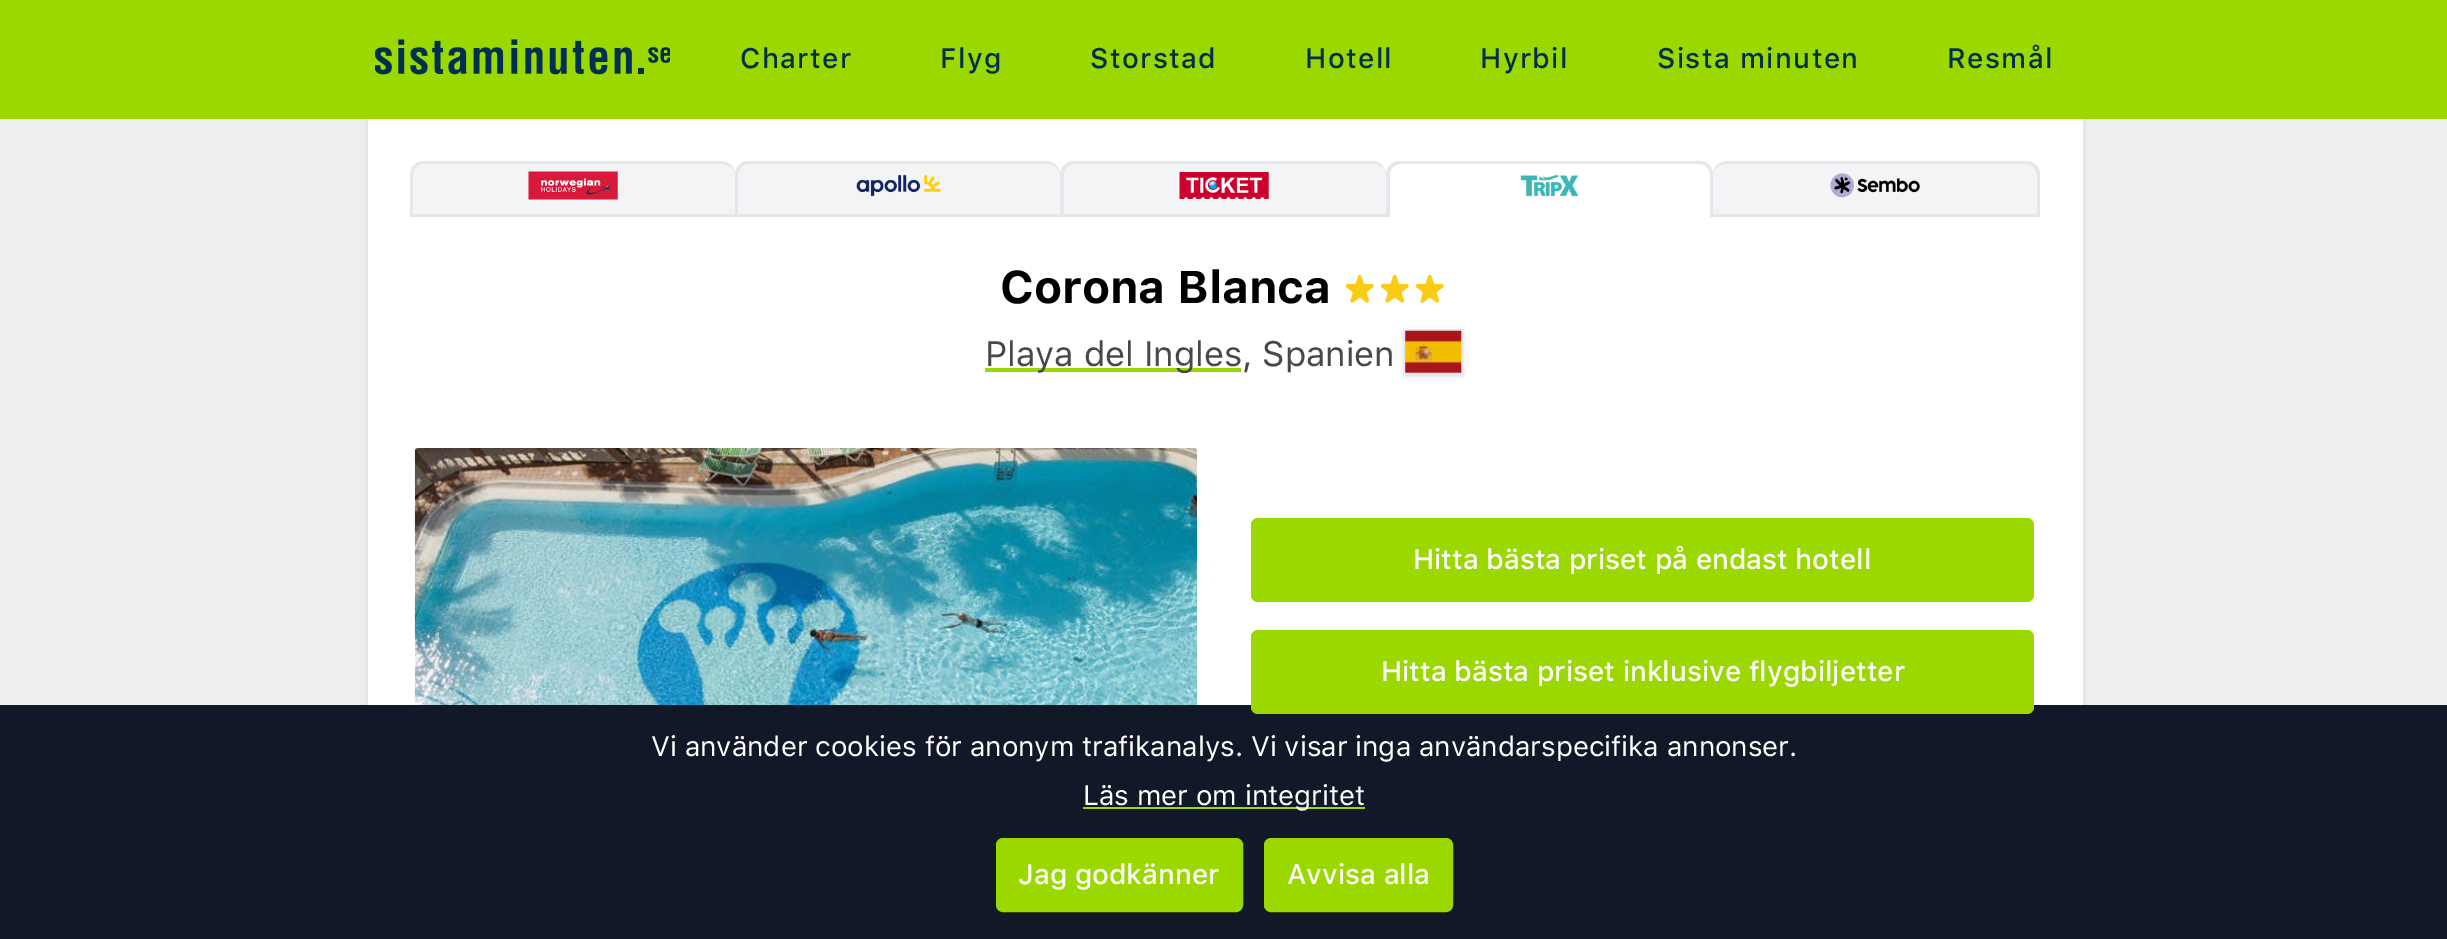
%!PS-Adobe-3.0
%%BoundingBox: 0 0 2447 939
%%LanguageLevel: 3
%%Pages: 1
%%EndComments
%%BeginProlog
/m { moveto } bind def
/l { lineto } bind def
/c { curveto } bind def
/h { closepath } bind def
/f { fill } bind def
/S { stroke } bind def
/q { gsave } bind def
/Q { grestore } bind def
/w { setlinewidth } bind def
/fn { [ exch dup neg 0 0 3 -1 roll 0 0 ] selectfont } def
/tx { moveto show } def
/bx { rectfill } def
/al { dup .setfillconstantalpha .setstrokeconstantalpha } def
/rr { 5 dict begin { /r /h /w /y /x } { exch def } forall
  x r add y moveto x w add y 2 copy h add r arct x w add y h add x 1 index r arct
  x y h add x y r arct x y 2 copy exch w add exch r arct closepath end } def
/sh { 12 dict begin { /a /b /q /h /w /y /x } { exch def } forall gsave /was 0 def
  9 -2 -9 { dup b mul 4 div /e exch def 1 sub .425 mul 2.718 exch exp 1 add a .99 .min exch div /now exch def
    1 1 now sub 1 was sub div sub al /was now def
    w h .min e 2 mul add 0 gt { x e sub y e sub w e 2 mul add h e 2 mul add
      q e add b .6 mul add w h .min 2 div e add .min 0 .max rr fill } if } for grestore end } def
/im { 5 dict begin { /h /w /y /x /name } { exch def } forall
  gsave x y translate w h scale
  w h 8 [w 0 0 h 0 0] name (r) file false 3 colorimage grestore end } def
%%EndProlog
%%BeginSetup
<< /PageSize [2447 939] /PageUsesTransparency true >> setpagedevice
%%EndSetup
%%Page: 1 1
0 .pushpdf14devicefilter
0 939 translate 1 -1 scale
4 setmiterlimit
0.933 setgray
0 0 2447 939 bx
0 setgray
368 121 1715 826 0 2.5 0.1 sh
0.604 0.847 0 setrgbcolor
0 0 2447 119 bx
(image0.raw) 375 39 295 36 im
/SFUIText-Medium 28 fn
0.012 0.184 0.306 setrgbcolor
740 68 m 1.4 0 (Charter) ashow
940 68 m 1.4 0 (Flyg) ashow
1090 68 m 1.4 0 (Storstad) ashow
1305 68 m 1.4 0 (Hotell) ashow
1480 68 m 1.4 0 (Hyrbil) ashow
1657 68 m 1.4 0 (Sista minuten) ashow
1947 68 m 1.4 0 (Resmål) ashow
1 setgray
368 119 1715 586 bx
0.953 0.957 0.965 setrgbcolor
424 164 m 721 164 l 729 164 735 169 735 175 c 735 214 l 413 214 l 413 175 l 413 169 418 164 424 164 c h f
0.898 0.906 0.922 setrgbcolor
424 161 m 721 161 l 729 161 735 167 735 175 c 735 217 l 410 217 l 410 175 l 410 167 416 161 424 161 c h 424 164 m 721 164 l 729 164 735 169 735 175 c 735 214 l 413 214 l 413 175 l 413 169 418 164 424 164 c h eofill
(image1.raw) 528 171 90 29 im
0.953 0.957 0.965 setrgbcolor
749 164 m 1046 164 l 1054 164 1060 169 1060 175 c 1060 214 l 738 214 l 738 175 l 738 169 743 164 749 164 c h f
0.898 0.906 0.922 setrgbcolor
749 161 m 1046 161 l 1054 161 1060 167 1060 175 c 1060 217 l 735 217 l 735 175 l 735 167 741 161 749 161 c h 749 164 m 1046 164 l 1054 164 1060 169 1060 175 c 1060 214 l 738 214 l 738 175 l 738 169 743 164 749 164 c h eofill
(image2.raw) 856 174 85 23 im
0.953 0.957 0.965 setrgbcolor
1074 164 m 1372 164 l 1380 164 1386 169 1386 175 c 1386 214 l 1064 214 l 1064 175 l 1064 169 1069 164 1074 164 c h f
0.898 0.906 0.922 setrgbcolor
1074 161 m 1372 161 l 1380 161 1386 167 1386 175 c 1386 217 l 1060 217 l 1060 175 l 1060 167 1067 161 1074 161 c h 1074 164 m 1372 164 l 1380 164 1386 169 1386 175 c 1386 214 l 1064 214 l 1064 175 l 1064 169 1069 164 1074 164 c h eofill
(image3.raw) 1179 172 90 27 im
1400 161 m 1699 161 l 1707 161 1713 167 1713 175 c 1713 217 l 1386 217 l 1386 175 l 1386 167 1392 161 1400 161 c h 1400 164 m 1699 164 l 1705 164 1710 169 1710 175 c 1710 217 l 1390 217 l 1390 175 l 1390 169 1394 164 1400 164 c h eofill
(image4.raw) 1520 174 59 23 im
0.953 0.957 0.965 setrgbcolor
1727 164 m 2026 164 l 2032 164 2037 169 2037 175 c 2037 214 l 1713 214 l 1713 175 l 1713 169 1720 164 1727 164 c h f
0.898 0.906 0.922 setrgbcolor
1727 161 m 2026 161 l 2034 161 2040 167 2040 175 c 2040 217 l 1713 217 l 1713 175 l 1713 167 1720 161 1727 161 c h 1727 164 m 2026 164 l 2032 164 2037 169 2037 175 c 2037 214 l 1713 214 l 1713 175 l 1713 169 1720 164 1727 164 c h eofill
(image5.raw) 1830 173 90 25 im
/SFUIText-Bold 45.5 fn
0 setgray
(Corona Blanca) 1000 303 tx
(image6.raw) 1346 275 28 28 im
(image6.raw) 1381 275 28 28 im
(image6.raw) 1416 275 28 28 im
0.604 0.847 0 setrgbcolor
985 368 256 4 bx
/SFUIText-Regular 35 fn
0.282 setgray
(Playa del Ingles, Spanien) 985 366 tx
0 setgray
1405 333 56 42 0 2 0.1 sh
1404 331 59 45 0 2.5 0.1 sh
0.898 0.906 0.922 setrgbcolor
2 w
1405 330 57 44 rectstroke
(image7.raw) 1405 330 57 43 im
(image8.raw) 414 448 783 257 im
0.604 0.847 0 setrgbcolor
1251 518 783 84 7 rr f
/SFUIText-Medium 28 fn
1 setgray
(Hitta bästa priset på endast hotell) 1413 569 tx
0.067 0.094 0.153 setrgbcolor
0 705 2447 234 bx
0.604 0.847 0 setrgbcolor
1251 630 783 84 7 rr f
1 setgray
(Hitta bästa priset inklusive flygbiljetter) 1381 681 tx
/SFUIText-Regular 28 fn
(Vi använder cookies för anonym trafikanalys. Vi visar inga användarspecifika annonser.) 651 756 tx
0.604 0.847 0 setrgbcolor
1083 807 282 2 bx
1 setgray
(Läs mer om integritet) 1083 805 tx
0.604 0.847 0 setrgbcolor
997 839 245 72 6 rr q f Q
S
/SFUIText-Medium 28 fn
1 setgray
(Jag godkänner) 1018 884 tx
0.604 0.847 0 setrgbcolor
1265 839 187 72 6 rr q f Q
S
1 setgray
(Avvisa alla) 1287 884 tx
.poppdf14devicefilter showpage
%%EOF
